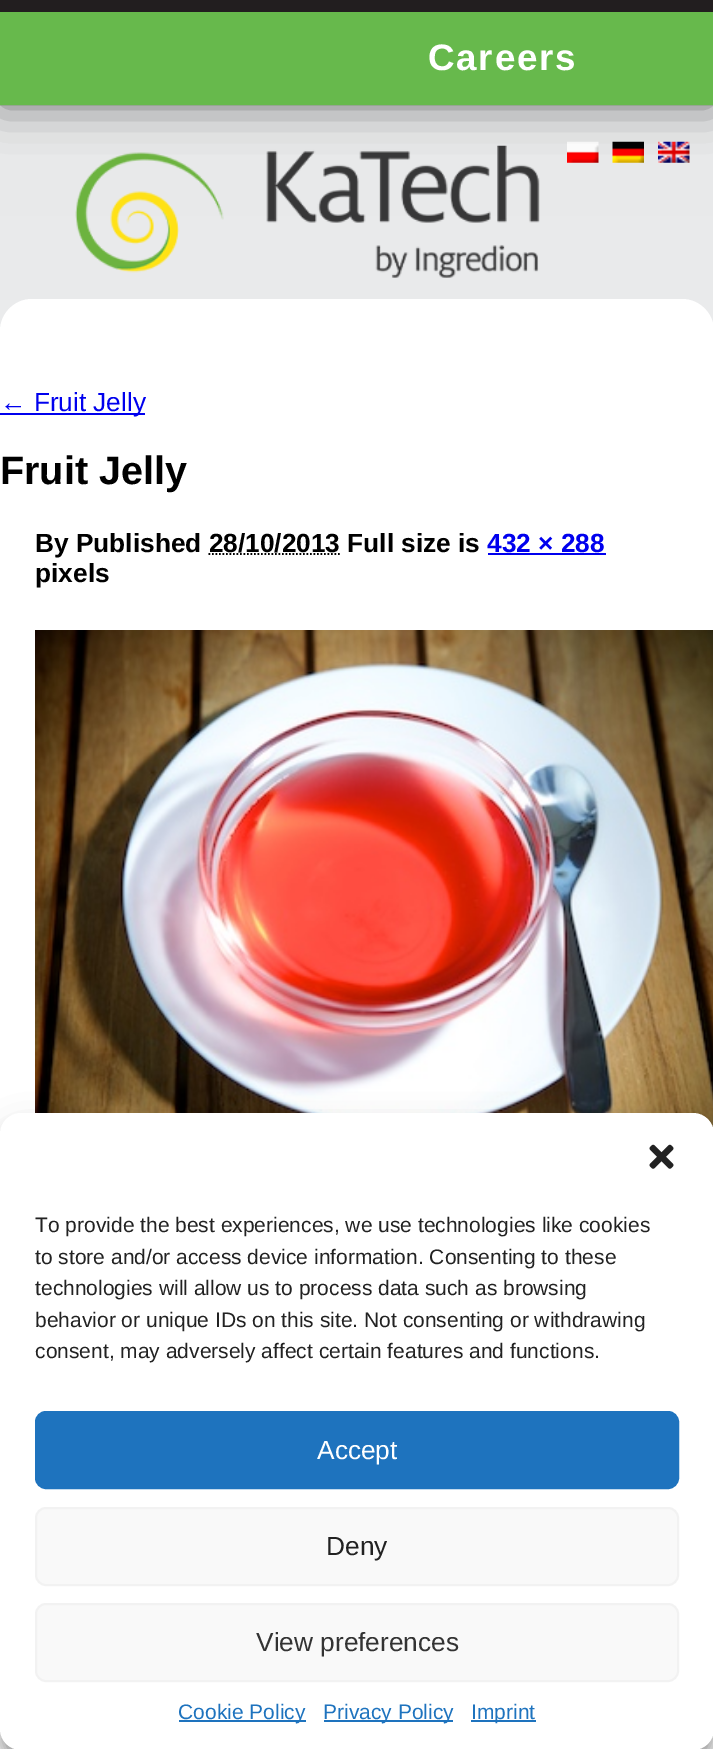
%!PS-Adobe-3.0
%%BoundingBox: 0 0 713 1749
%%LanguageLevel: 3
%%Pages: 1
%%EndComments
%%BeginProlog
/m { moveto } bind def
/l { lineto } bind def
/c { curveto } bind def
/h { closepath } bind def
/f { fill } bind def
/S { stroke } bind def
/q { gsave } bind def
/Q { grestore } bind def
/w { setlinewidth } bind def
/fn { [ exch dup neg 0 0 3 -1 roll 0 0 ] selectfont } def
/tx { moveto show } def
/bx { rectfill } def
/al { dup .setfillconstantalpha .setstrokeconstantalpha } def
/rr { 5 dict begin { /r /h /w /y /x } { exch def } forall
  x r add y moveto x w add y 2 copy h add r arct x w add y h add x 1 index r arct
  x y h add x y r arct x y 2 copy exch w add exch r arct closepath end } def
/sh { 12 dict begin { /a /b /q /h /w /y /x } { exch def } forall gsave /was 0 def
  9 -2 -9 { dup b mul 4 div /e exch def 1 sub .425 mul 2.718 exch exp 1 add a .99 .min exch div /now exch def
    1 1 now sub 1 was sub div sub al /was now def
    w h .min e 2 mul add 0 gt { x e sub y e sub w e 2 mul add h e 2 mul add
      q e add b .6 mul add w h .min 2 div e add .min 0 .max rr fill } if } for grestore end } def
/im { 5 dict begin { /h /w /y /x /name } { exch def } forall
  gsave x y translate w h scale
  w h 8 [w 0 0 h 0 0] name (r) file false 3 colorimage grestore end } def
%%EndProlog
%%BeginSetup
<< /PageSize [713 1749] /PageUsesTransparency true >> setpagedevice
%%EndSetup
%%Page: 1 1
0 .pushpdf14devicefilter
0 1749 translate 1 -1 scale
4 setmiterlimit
1 setgray
0 0 713 1749 bx
(image0.raw) 0 105 713 226 im
(image1.raw) 75 145 465 133 im
(image2.raw) 567 141 32 22 im
(image3.raw) 612 141 32 22 im
(image4.raw) 658 141 32 22 im
0 setgray
0 0 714 105 0 22 0.5 sh
0.404 0.725 0.298 setrgbcolor
0 12 713 93 bx
0.133 0.118 0.122 setrgbcolor
0 0 713 12 bx
/LiberationSans-Bold 36.75 fn
1 setgray
428 70 m 1.75 0 (Careers) ashow
32 299 m 682 299 l 699.5 299 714 313.5 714 331 c 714 1202 l 0 1202 l 0 331 l 0 313.5 14.5 299 32 299 c h f
0 0 0.933 setrgbcolor
0 413 145 2 bx
/LiberationSans-Regular 26.25 fn
(← Fruit Jelly) 0 411 tx
/LiberationSans-Bold 39.5 fn
0 setgray
(Fruit Jelly) 0 484 tx
/LiberationSans-Bold 26.25 fn
(By Published 28/10/2013 Full size is) 35 552 tx
0 0 0.933 setrgbcolor
(432 × 288) 487 552 tx
488 553 118 2 bx
0 setgray
1.8 w
[1.75 1.75] 0 setdash
208.5 554 m 340 554 l S
(pixels) 35 582 tx
(image5.raw) 35 630 678 498 im
0 1124 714 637 21 5 0.23 sh
0 1131 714 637 21 17.5 0.19 sh
1 setgray
0 1113 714 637 21 rr f
(image6.raw) 649 1144 25 25 im
/LiberationSans-Regular 21 fn
0.133 setgray
(To provide the best experiences, we use technologies like cookies) 35 1232 tx
(to store and/or access device information. Consenting to these) 35 1264 tx
(technologies will allow us to process data such as browsing) 35 1295 tx
(behavior or unique IDs on this site. Not consenting or withdrawing) 35 1327 tx
(consent, may adversely affect certain features and functions.) 35 1358 tx
0.118 0.451 0.745 setrgbcolor
36 1412 642 76 10 rr q f Q
2 w
[] 0 setdash
S
/LiberationSans-Regular 26.25 fn
1 setgray
(Accept) 317 1459 tx
0.976 setgray
36 1508 642 77 10 rr q f Q
0.949 setgray
S
0.133 setgray
(Deny) 326 1555 tx
0.976 setgray
36 1604 642 77 10 rr q f Q
0.949 setgray
S
0.2 setgray
(View preferences) 256 1651 tx
0.118 0.451 0.745 setrgbcolor
179 1720 127 2 bx
/LiberationSans-Regular 21 fn
(Cookie Policy) 178 1719 tx
324 1720 129 2 bx
(Privacy Policy) 323 1719 tx
471 1720 65 2 bx
(Imprint) 471 1719 tx
.poppdf14devicefilter showpage
%%EOF
